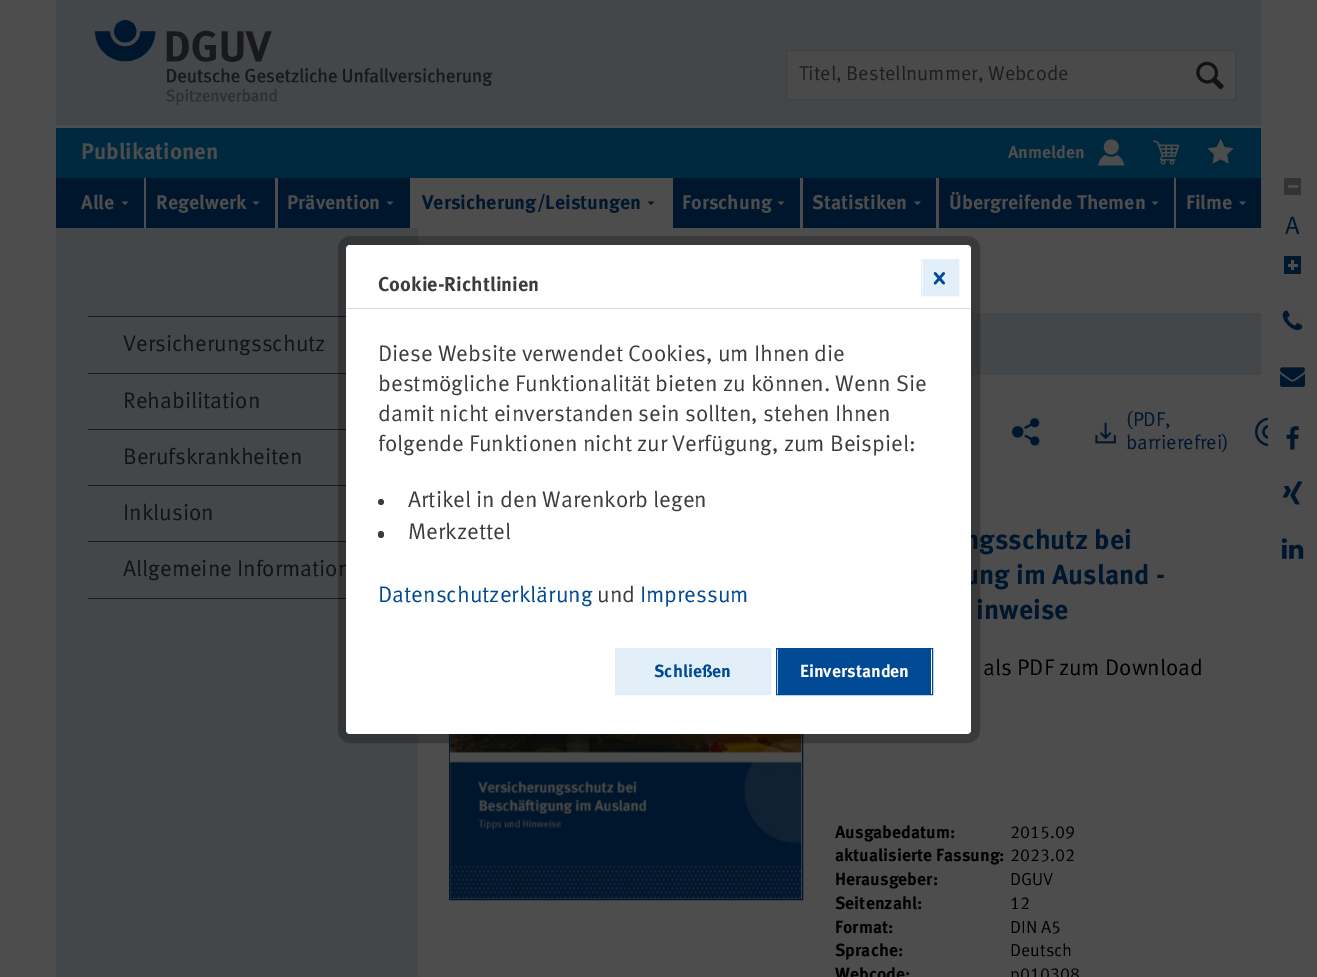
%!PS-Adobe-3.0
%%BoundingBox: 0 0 1317 977
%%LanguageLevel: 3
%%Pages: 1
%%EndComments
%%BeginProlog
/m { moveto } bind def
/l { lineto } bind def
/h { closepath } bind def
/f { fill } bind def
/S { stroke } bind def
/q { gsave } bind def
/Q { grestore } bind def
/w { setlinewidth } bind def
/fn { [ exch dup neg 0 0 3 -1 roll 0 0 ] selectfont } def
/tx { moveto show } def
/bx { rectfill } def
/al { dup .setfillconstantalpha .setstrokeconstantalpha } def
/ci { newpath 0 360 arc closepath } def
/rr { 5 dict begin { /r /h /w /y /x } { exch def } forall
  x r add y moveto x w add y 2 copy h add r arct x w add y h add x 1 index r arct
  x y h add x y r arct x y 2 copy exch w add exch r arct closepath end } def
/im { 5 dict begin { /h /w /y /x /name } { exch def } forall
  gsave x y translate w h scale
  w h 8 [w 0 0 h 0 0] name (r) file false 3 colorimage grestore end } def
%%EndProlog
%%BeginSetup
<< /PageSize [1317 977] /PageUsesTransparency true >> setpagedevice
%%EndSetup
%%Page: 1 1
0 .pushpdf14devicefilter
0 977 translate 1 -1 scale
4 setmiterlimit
0.302 setgray
0 0 1317 977 bx
0.267 0.278 0.29 setrgbcolor
56 0 1205 125 bx
(image0.raw) 95 20 398 85 im
0.29 0.29 0.294 setrgbcolor
786.5 50.5 m 1235.5 50.5 l 1235.5 99.5 l 786.5 99.5 l h q f Q
0.255 0.255 0.271 setrgbcolor
S
/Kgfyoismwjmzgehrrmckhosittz-Regular 20 fn
0.114 setgray
(Titel, Bestellnummer, Webcode) 799 80 tx
(image1.raw) 1196 61 28 29 im
0 0.157 0.243 setrgbcolor
56 128 1205 50 bx
/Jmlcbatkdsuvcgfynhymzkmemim-Bold 22.5 fn
0.302 setgray
(Publikationen) 81 159 tx
/Jmlcbatkdsuvcgfynhymzkmemim-Bold 17.5 fn
(Anmelden) 1008 158 tx
(image2.raw) 1098 139 27 27 im
(image3.raw) 1153 140 27 25 im
(image4.raw) 1208 139 26 25 im
0 0.086 0.173 setrgbcolor
56 178 1118 50 bx
0.302 setgray
144 178 2 50 bx
/Jmlcbatkdsuvcgfynhymzkmemim-Bold 19.75 fn
(Alle) 81 209 tx
128.5 201.5 m 125 205 l 121.5 201.5 l h f
275 178 3 50 bx
(Regelwerk) 156 209 tx
259.5 201.5 m 256 205 l 252.5 201.5 l h f
410 178 263 50 bx
(Prävention) 287 209 tx
393.5 201.5 m 390 205 l 386.5 201.5 l h f
0 0.086 0.173 setrgbcolor
(Versicherung/Leistungen) 422 209 tx
654.5 201.5 m 651 205 l 647.5 201.5 l h f
0.302 setgray
800 178 3 50 bx
(Forschung) 682 209 tx
784.5 201.5 m 781 205 l 777.5 201.5 l h f
936 178 3 50 bx
(Statistiken) 812 209 tx
921 201.5 m 917.5 205 l 914 201.5 l h f
(Übergreifende Themen) 949 209 tx
1158.5 201.5 m 1155 205 l 1151.5 201.5 l h f
0 0.086 0.173 setrgbcolor
1176 178 85 50 bx
0.302 setgray
(Filme) 1186 209 tx
1246 201.5 m 1242.5 205 l 1239 201.5 l h f
0.267 0.278 0.29 setrgbcolor
56 228 362 749 bx
0.102 setgray
88 316 258 1 bx
88 373 258 1 bx
/Kgfyoismwjmzgehrrmckhosittz-Regular 22.5 fn
0.071 setgray
(Versicherungsschutz) 123 351 tx
0.102 setgray
88 429 258 1 bx
0.071 setgray
(Rehabilitation) 123 408 tx
0.102 setgray
88 485 258 1 bx
0.071 setgray
(Berufskrankheiten) 123 464 tx
0.102 setgray
88 541 258 1 bx
0.071 setgray
(Inklusion) 123 520 tx
0.102 setgray
88 598 258 1 bx
0.071 setgray
(Allgemeine Information) 123 576 tx
0.267 0.278 0.29 setrgbcolor
971 313 290 62 bx
0 0.086 0.173 setrgbcolor
449.5 400.5 353 499 rectstroke
(image5.raw) 449 734 353 165 im
(image6.raw) 1012 418 28 28 im
(image7.raw) 1095 422 21 22 im
/Kgfyoismwjmzgehrrmckhosittz-Regular 20 fn
(\(PDF,) 1126 426 tx
(barrierefrei\)) 1126 449 tx
(image8.raw) 1255 418 13 28 im
/Jmlcbatkdsuvcgfynhymzkmemim-Bold 27.5 fn
(ngsschutz bei) 964 549 tx
(ung im Ausland -) 964 584 tx
(inweise) 976 619 tx
/Kgfyoismwjmzgehrrmckhosittz-Regular 22.5 fn
0 setgray
(als PDF zum Download) 983 675 tx
/Jmlcbatkdsuvcgfynhymzkmemim-Bold 17.5 fn
(Ausgabedatum:) 835 838 tx
/Kgfyoismwjmzgehrrmckhosittz-Regular 17.5 fn
(2015.09) 1010 838 tx
/Jmlcbatkdsuvcgfynhymzkmemim-Bold 17.5 fn
(aktualisierte Fassung:) 835 861 tx
/Kgfyoismwjmzgehrrmckhosittz-Regular 17.5 fn
(2023.02) 1010 861 tx
/Jmlcbatkdsuvcgfynhymzkmemim-Bold 17.5 fn
(Herausgeber:) 835 885 tx
/Kgfyoismwjmzgehrrmckhosittz-Regular 17.5 fn
(DGUV) 1010 885 tx
/Jmlcbatkdsuvcgfynhymzkmemim-Bold 17.5 fn
(Seitenzahl:) 835 909 tx
/Kgfyoismwjmzgehrrmckhosittz-Regular 17.5 fn
(12) 1010 909 tx
/Jmlcbatkdsuvcgfynhymzkmemim-Bold 17.5 fn
(Format:) 835 933 tx
/Kgfyoismwjmzgehrrmckhosittz-Regular 17.5 fn
(DIN A5) 1010 933 tx
/Jmlcbatkdsuvcgfynhymzkmemim-Bold 17.5 fn
(Sprache:) 835 956 tx
/Kgfyoismwjmzgehrrmckhosittz-Regular 17.5 fn
(Deutsch) 1010 956 tx
/Jmlcbatkdsuvcgfynhymzkmemim-Bold 17.5 fn
(Webcode:) 835 980 tx
/Kgfyoismwjmzgehrrmckhosittz-Regular 17.5 fn
(p010308) 1010 980 tx
0.2 setgray
1284 178 17 17 bx
0.302 setgray
1288 185 10 3 bx
/Kgfyoismwjmzgehrrmckhosittz-Regular 25 fn
0 0.086 0.173 setrgbcolor
(A) 1285 234 tx
0 0.098 0.184 setrgbcolor
1284 256 17 18 bx
0.302 setgray
1288 264 10 3 bx
1291 260 3 10 bx
(image9.raw) 1282 310 21 21 im
(image10.raw) 1280 367 25 20 im
(image11.raw) 1286 426 13 24 im
(image12.raw) 1282 481 21 24 im
(image13.raw) 1281 538 23 21 im
0.25 al
0 setgray
9 w
342.5 240.5 633 498 8.5 rr S
1 al
1 setgray
346 245 625 489 4 rr f
0.855 0.855 0.898 setrgbcolor
346 308 625 1 bx
/Jmlcbatkdsuvcgfynhymzkmemim-Bold 20 fn
0.235 setgray
(Cookie-Richtlinien) 378 291 tx
0.886 0.933 0.973 setrgbcolor
923 260 35 35 bx
1 w
921.5 259.5 37 36 rectstroke
(image14.raw) 933 272 12 13 im
/Kgfyoismwjmzgehrrmckhosittz-Regular 22.5 fn
0.235 setgray
(Diese Website verwendet Cookies, um Ihnen die) 378 361 tx
(bestmögliche Funktionalität bieten zu können. Wenn Sie) 378 391 tx
(damit nicht einverstanden sein sollten, stehen Ihnen) 378 421 tx
(folgende Funktionen nicht zur Verfügung, zum Beispiel:) 378 451 tx
381 502 3 ci f
(Artikel in den Warenkorb legen) 408 507 tx
378 531 6 7 3 rr f
(Merkzettel) 408 539 tx
0 0.286 0.58 setrgbcolor
(Datenschutzerklärung) 378 602 tx
0.235 setgray
(und) 597 602 tx
0 0.286 0.58 setrgbcolor
(Impressum) 640 602 tx
0.886 0.933 0.973 setrgbcolor
615.5 648.5 m 770.5 648.5 l 770.5 694.5 l 615.5 694.5 l h q f Q
S
/Jmlcbatkdsuvcgfynhymzkmemim-Bold 17.5 fn
0 0.286 0.58 setrgbcolor
(Schließen) 654 677 tx
778 649 153 45 bx
776.5 648.5 156 46 rectstroke
1 setgray
(Einverstanden) 800 677 tx
.poppdf14devicefilter showpage
%%EOF
